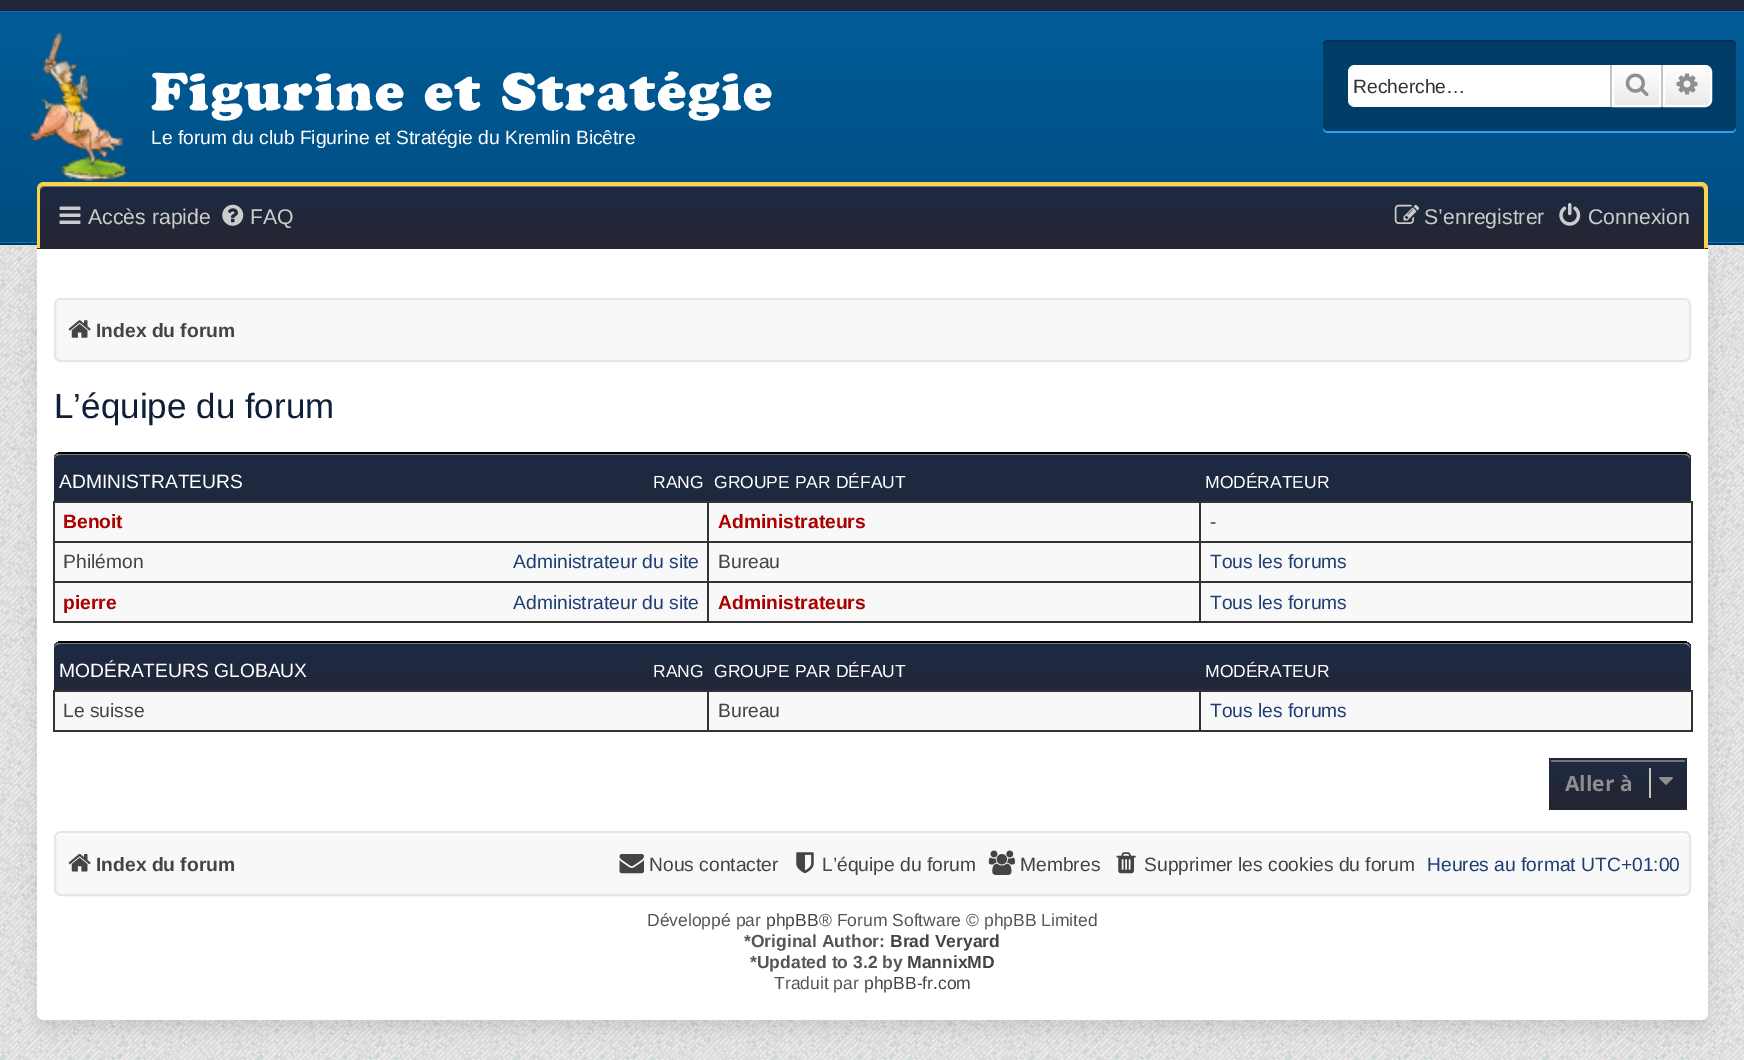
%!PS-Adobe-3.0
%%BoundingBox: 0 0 1744 1060
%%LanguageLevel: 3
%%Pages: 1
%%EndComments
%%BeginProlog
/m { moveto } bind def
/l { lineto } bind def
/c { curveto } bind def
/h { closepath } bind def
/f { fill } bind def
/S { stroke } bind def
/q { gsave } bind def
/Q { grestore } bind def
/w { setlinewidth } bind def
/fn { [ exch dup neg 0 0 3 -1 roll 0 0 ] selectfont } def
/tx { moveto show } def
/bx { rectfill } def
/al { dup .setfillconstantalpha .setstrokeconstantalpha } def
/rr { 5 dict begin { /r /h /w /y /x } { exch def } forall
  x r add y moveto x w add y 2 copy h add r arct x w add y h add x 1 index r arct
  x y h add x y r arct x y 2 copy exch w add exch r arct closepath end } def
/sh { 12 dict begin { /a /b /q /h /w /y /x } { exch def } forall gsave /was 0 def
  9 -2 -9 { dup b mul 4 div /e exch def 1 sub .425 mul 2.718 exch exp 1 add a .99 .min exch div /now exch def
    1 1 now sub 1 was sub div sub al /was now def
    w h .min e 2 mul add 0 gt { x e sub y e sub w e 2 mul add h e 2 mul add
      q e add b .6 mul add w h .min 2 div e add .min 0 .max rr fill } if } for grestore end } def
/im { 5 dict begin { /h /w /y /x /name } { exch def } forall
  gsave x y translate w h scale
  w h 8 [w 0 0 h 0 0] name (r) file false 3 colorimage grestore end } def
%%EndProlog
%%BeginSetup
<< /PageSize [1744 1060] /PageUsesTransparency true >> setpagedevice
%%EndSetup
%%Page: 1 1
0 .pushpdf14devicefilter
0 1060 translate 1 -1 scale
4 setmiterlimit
1 setgray
0 0 1744 1060 bx
(image0.raw) 0 1022 1744 38 im
(image1.raw) 0 245 1744 777 im
q 0 0 m 1744 0 l 1744 11 l 0 11 l h clip newpath
<< /ShadingType 2 /ColorSpace /DeviceRGB /Coords [872 -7 872 11] /Extend [true true] /Function << /FunctionType 2 /Domain [0 1] /C0 [0.114 0.165 0.263] /C1 [0.145 0.145 0.188] /N 1 >> >> shfill Q
0 0.427 0.827 setrgbcolor
0 11 1744 1 bx
q 0 12 m 1744 12 l 1744 33 l 0 33 l h clip newpath
<< /ShadingType 2 /ColorSpace /DeviceRGB /Coords [872 12 872 243] /Extend [true true] /Function << /FunctionType 2 /Domain [0 1] /C0 [0 0.357 0.588] /C1 [0 0.302 0.502] /N 1 >> >> shfill Q
q 0 33 m 1744 33 l 1744 242 l 0 242 l h clip newpath
<< /ShadingType 2 /ColorSpace /DeviceRGB /Coords [872 33 872 243] /Extend [true true] /Function << /FunctionType 2 /Domain [0 1] /C0 [0 0.357 0.588] /C1 [0 0.302 0.502] /N 1 >> >> shfill Q
0 0.471 0.78 setrgbcolor
0 242 1744 1 bx
0 0.224 0.373 setrgbcolor
0 243 1744 2 bx
(image2.raw) 29 33 98 149 im
/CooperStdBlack-Black 52.5 fn
1 setgray
151 110 m 1.75 0 (Figurine et Stratégie) ashow
/LiberationSans-Regular 19.25 fn
(Le forum du club Figurine et Stratégie du Kremlin Bicêtre) 151 144 tx
0.2 0.627 0.929 setrgbcolor
1323 126 m 1323 128 l 1323 131 1325 133 1328 133 c 1731 133 l 1734 133 1736 131 1736 128 c 1736 126 l 1736 129 1734 131 1731 131 c 1328 131 l 1325 131 1323 129 1323 126 c h f
0 0.243 0.408 setrgbcolor
1323 40 413 91 5 rr f
0 0.188 0.314 setrgbcolor
1328 42 m 1731 42 l 1734 42 1736 44 1736 47 c 1736 45 l 1736 42 1734 40 1731 40 c 1328 40 l 1325 40 1323 42 1323 45 c 1323 47 l 1323 44 1325 42 1328 42 c h f
1 setgray
1355 65 m 1610 65 l 1610 107 l 1355 107 l 1351 107 1348 104 1348 100 c 1348 72 l 1348 68 1351 65 1355 65 c h f
0.2 setgray
(Recherche…) 1353 93 tx
q 1614 67 m 1659 67 l 1659 105 l 1614 105 l h clip newpath
<< /ShadingType 2 /ColorSpace /DeviceRGB /Coords [1636 65 1636 107] /Extend [true true] /Function << /FunctionType 2 /Domain [0 1] /C0 [1 1 1] /C1 [0.914 0.914 0.914] /N 1 >> >> shfill Q
1 setgray
2 w
1613 66 47 40 rectstroke
0.78 0.765 0.749 setrgbcolor
1661 65 2 42 bx
1610 65 2 42 bx
(image3.raw) 1625 73 24 24 im
q 1664 66 m 1705 66 l 1708.5 66 1711 68.5 1711 72 c 1711 100 l 1711 103.5 1708.5 106 1705 106 c 1664 106 l h clip newpath
<< /ShadingType 2 /ColorSpace /DeviceRGB /Coords [1687 65 1687 107] /Extend [true true] /Function << /FunctionType 2 /Domain [0 1] /C0 [1 1 1] /C1 [0.914 0.914 0.914] /N 1 >> >> shfill Q
1 setgray
1664 66 m 1705 66 l 1708.5 66 1711 68.5 1711 72 c 1711 100 l 1711 103.5 1708.5 106 1705 106 c 1664 106 l h S
(image4.raw) 1676 73 22 22 im
q
44 182 m 1701 182 l 1705 182 1708 185 1708 189 c 1708 249 l 37 249 l 37 189 l 37 185 40 182 44 182 c h clip newpath
q 37 186 m 1708 186 l 1708 249 l 37 249 l h clip newpath
<< /ShadingType 2 /ColorSpace /DeviceRGB /Coords [872 185 872 249] /Extend [true true] /Function << /FunctionType 2 /Domain [0 1] /C0 [0.114 0.165 0.263] /C1 [0.145 0.145 0.188] /N 1 >> >> shfill Q
Q
0.459 setgray
44 187 m 1701 187 l 1703 187 1704 189 1704 191 c 1704 249 l 1705 249 l 1705 190 l 1705 188 1703 186 1701 186 c 44 186 l 42 186 40 188 40 190 c 40 191 l 40 189 42 187 44 187 c h f
0.98 0.827 0.306 setrgbcolor
44 182 m 1701 182 l 1705 182 1708 185 1708 189 c 1708 248 l 37 248 l 37 189 l 37 185 40 182 44 182 c h 44 186 m 1701 186 l 1703 186 1704 187 1704 189 c 1704 248 l 40 248 l 40 189 l 40 187 42 186 44 186 c h eofill
(image5.raw) 59 206 22 18 im
/LiberationSans-Regular 21.25 fn
0.8 setgray
(Accès rapide) 88 224 tx
(image6.raw) 222 204 22 22 im
(FAQ) 250 224 tx
(image7.raw) 1394 204 26 20 im
(S’enregistrer) 1424 224 tx
(image8.raw) 1559 203 22 23 im
(Connexion) 1588 224 tx
0 setgray
37 257 1671 772 7 8 0.1 sh
1 setgray
37 249 m 1708 249 l 1708 1013 l 1708 1017 1705 1020 1701 1020 c 44 1020 l 40 1020 37 1017 37 1013 c h f
0.973 setgray
54 298 1637 64 7 rr f
1 setgray
61 301 m 1684 301 l 1686 301 1689 303 1689 306 c 1689 303 1688 299 1684 299 c 61 299 l 57 299 56 303 56 306 c 56 303 58 301 61 301 c h f
0.902 setgray
55 299 1635 62 6 rr S
(image9.raw) 68 320 23 18 im
/LiberationSans-Bold 19.25 fn
0.267 setgray
(Index du forum) 96 337 tx
/LiberationSans-Regular 35 fn
0.055 0.125 0.224 setrgbcolor
(L’équipe du forum) 54 418 tx
q
61 452 m 1684 452 l 1688 452 1691 455 1691 459 c 1691 623 l 54 623 l 54 459 l 54 455 57 452 61 452 c h clip newpath
q 54 453 m 1691 453 l 1691 501 l 54 501 l h clip newpath
<< /ShadingType 2 /ColorSpace /DeviceRGB /Coords [872 453 872 623] /Extend [true true] /Function << /FunctionType 2 /Domain [0 1] /C0 [0.114 0.165 0.263] /C1 [0.145 0.145 0.188] /N 1 >> >> shfill Q
Q
0.459 setgray
61 455 m 1684 455 l 1687 455 1690 457 1690 460 c 1690 623 l 1690 458 l 1690 456 1687 453 1684 453 c 61 453 l 57 453 54 456 54 458 c 54 459 l 55 456 58 455 61 455 c h f
0 setgray
58 452 1629 2 bx
/LiberationSans-Regular 19.25 fn
1 setgray
(ADMINISTRATEURS) 59 488 tx
/LiberationSans-Regular 17.5 fn
(RANG) 653 488 tx
(GROUPE PAR DÉFAUT) 714 488 tx
(MODÉRATEUR) 1205 488 tx
0.973 setgray
55 503 1636 38 bx
0.2 setgray
1199 501 493 2 bx
1199 541 493 2 bx
0.973 setgray
55 543 1636 38 bx
0.2 setgray
1199 581 493 2 bx
0.973 setgray
55 583 1636 38 bx
0.2 setgray
1691 581 2 42 bx
1199 621 493 2 bx
1199 581 2 42 bx
707 581 494 2 bx
1199 541 2 42 bx
707 541 494 2 bx
1199 501 2 42 bx
707 501 494 2 bx
707 621 494 2 bx
707 581 2 42 bx
53 581 656 2 bx
707 541 2 42 bx
53 541 656 2 bx
707 501 2 42 bx
53 501 656 2 bx
53 621 656 2 bx
53 581 2 42 bx
53 541 2 42 bx
53 501 2 42 bx
/LiberationSans-Bold 19.25 fn
0.667 0 0 setrgbcolor
(Benoit) 63 528 tx
(Administrateurs) 718 528 tx
0.2 setgray
1691 541 2 42 bx
1691 501 2 42 bx
/LiberationSans-Regular 19.25 fn
0.118 0.247 0.459 setrgbcolor
(-) 1210 528 tx
0.267 setgray
(Philémon) 63 568 tx
0.118 0.247 0.459 setrgbcolor
(Administrateur du site) 513 568 tx
0.267 setgray
(Bureau) 718 568 tx
0.118 0.247 0.459 setrgbcolor
(Tous les forums) 1210 568 tx
/LiberationSans-Bold 19.25 fn
0.667 0 0 setrgbcolor
(pierre) 63 609 tx
/LiberationSans-Regular 19.25 fn
0.118 0.247 0.459 setrgbcolor
(Administrateur du site) 513 609 tx
/LiberationSans-Bold 19.25 fn
0.667 0 0 setrgbcolor
(Administrateurs) 718 609 tx
/LiberationSans-Regular 19.25 fn
0.118 0.247 0.459 setrgbcolor
(Tous les forums) 1210 609 tx
q
61 641 m 1684 641 l 1688 641 1691 644 1691 648 c 1691 732 l 54 732 l 54 648 l 54 644 57 641 61 641 c h clip newpath
q 54 642 m 1691 642 l 1691 690 l 54 690 l h clip newpath
<< /ShadingType 2 /ColorSpace /DeviceRGB /Coords [872 642 872 732] /Extend [true true] /Function << /FunctionType 2 /Domain [0 1] /C0 [0.114 0.165 0.263] /C1 [0.145 0.145 0.188] /N 1 >> >> shfill Q
Q
0.459 setgray
61 644 m 1684 644 l 1687 644 1690 646 1690 649 c 1690 732 l 1690 648 l 1690 645 1687 642 1684 642 c 61 642 l 57 642 54 645 54 648 c 55 645 58 644 61 644 c h f
0 setgray
58 641 1629 2 bx
1 setgray
(MODÉRATEURS GLOBAUX) 59 677 tx
/LiberationSans-Regular 17.5 fn
(RANG) 653 677 tx
(GROUPE PAR DÉFAUT) 714 677 tx
(MODÉRATEUR) 1205 677 tx
0.973 setgray
55 692 1636 38 bx
0.2 setgray
1199 690 493 2 bx
1691 690 2 42 bx
1199 730 493 2 bx
1199 690 2 42 bx
707 690 494 2 bx
707 730 494 2 bx
707 690 2 42 bx
53 690 656 2 bx
53 730 656 2 bx
53 690 2 42 bx
/LiberationSans-Regular 19.25 fn
0.267 setgray
(Le suisse) 63 717 tx
(Bureau) 718 717 tx
0.118 0.247 0.459 setrgbcolor
(Tous les forums) 1210 717 tx
q 1549 758 m 1687 758 l 1687 760 l 1549 760 l h clip newpath
<< /ShadingType 2 /ColorSpace /DeviceRGB /Coords [1618 711 1618 760] /Extend [true true] /Function << /FunctionType 2 /Domain [0 1] /C0 [0.114 0.165 0.263] /C1 [0.145 0.145 0.188] /N 1 >> >> shfill Q
q 1549 760 m 1687 760 l 1687 809 l 1549 809 l h clip newpath
<< /ShadingType 2 /ColorSpace /DeviceRGB /Coords [1618 760 1618 809] /Extend [true true] /Function << /FunctionType 2 /Domain [0 1] /C0 [0.114 0.165 0.263] /C1 [0.145 0.145 0.188] /N 1 >> >> shfill Q
q 1549 809 m 1687 809 l 1687 810 l 1549 810 l h clip newpath
<< /ShadingType 2 /ColorSpace /DeviceRGB /Coords [1618 809 1618 858] /Extend [true true] /Function << /FunctionType 2 /Domain [0 1] /C0 [0.114 0.165 0.263] /C1 [0.145 0.145 0.188] /N 1 >> >> shfill Q
0.459 setgray
1551 760 134 2 bx
/OpenSans-Bold 21 fn
0.561 setgray
(Aller à) 1565 791 tx
0.78 0.765 0.749 setrgbcolor
1649 768 2 30 bx
(image10.raw) 1659 777 14 8 im
0.973 setgray
54 831 1637 65 7 rr f
1 setgray
61 835 m 1684 835 l 1686 835 1689 837 1689 840 c 1689 837 1688 833 1684 833 c 61 833 l 57 833 56 837 56 840 c 56 837 58 835 61 835 c h f
0.902 setgray
55 832 1635 63 6 rr S
(image11.raw) 68 854 23 18 im
/LiberationSans-Bold 19.25 fn
0.267 setgray
(Index du forum) 96 871 tx
(image12.raw) 619 854 25 20 im
/LiberationSans-Regular 19.25 fn
(Nous contacter) 649 871 tx
(image13.raw) 796 852 18 22 im
(L’équipe du forum) 822 871 tx
(image14.raw) 988 850 27 25 im
(Membres) 1020 871 tx
(image15.raw) 1116 852 20 22 im
(Supprimer les cookies du forum) 1144 871 tx
0.118 0.247 0.459 setrgbcolor
(Heures au format UTC+01:00) 1427 871 tx
/LiberationSans-Regular 17.5 fn
0.333 setgray
(Développé par) 647 926 tx
0.267 setgray
(phpBB) 766 926 tx
0.333 setgray
(® Forum Software © phpBB Limited) 819 926 tx
/LiberationSans-Bold 17.5 fn
(*Original Author:) 744 947 tx
0.267 setgray
(Brad Veryard) 890 947 tx
0.333 setgray
(*Updated to 3.2 by) 750 968 tx
0.267 setgray
(MannixMD) 907 968 tx
/LiberationSans-Regular 17.5 fn
0.333 setgray
(Traduit par) 774 989 tx
0.267 setgray
(phpBB-fr.com) 864 989 tx
.poppdf14devicefilter showpage
%%EOF
